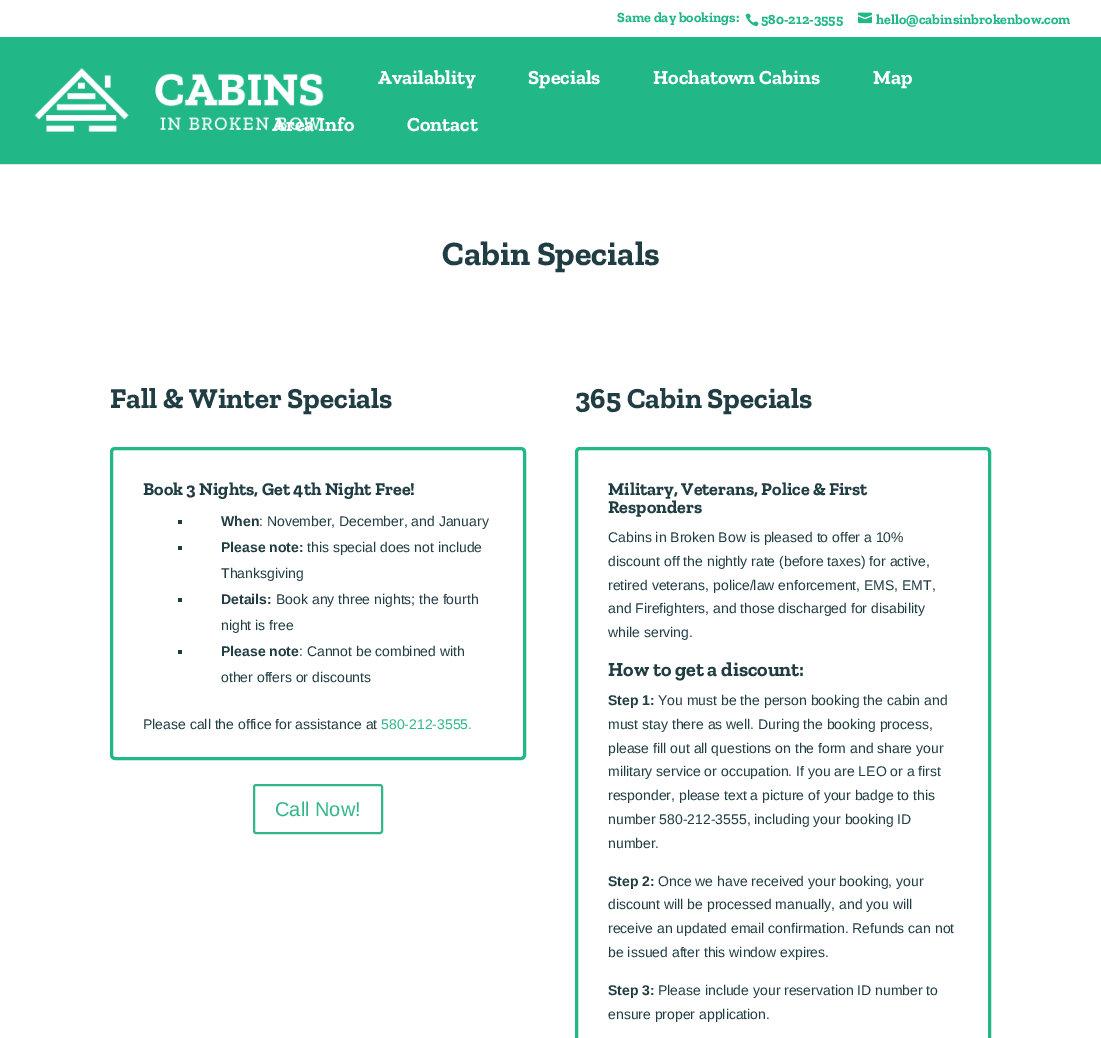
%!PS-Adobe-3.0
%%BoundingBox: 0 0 1101 1038
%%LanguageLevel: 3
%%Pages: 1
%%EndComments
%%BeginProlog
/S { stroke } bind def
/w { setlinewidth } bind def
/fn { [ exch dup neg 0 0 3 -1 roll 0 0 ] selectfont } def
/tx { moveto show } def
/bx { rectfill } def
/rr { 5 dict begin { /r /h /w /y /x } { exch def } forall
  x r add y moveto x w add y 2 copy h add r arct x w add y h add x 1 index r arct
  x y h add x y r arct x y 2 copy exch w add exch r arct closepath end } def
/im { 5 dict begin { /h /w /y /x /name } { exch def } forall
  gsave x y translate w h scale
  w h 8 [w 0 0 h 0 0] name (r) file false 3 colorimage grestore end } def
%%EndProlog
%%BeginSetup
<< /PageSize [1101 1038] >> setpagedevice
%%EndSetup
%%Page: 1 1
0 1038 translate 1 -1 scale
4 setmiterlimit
1 setgray
0 0 1101 1038 bx
/ZillaSlab-Bold 14 fn
0.129 0.718 0.525 setrgbcolor
(Same day bookings:) 617 22 tx
(580-212-3555) 761 24 tx
(image0.raw) 745 13 14 14 im
(image1.raw) 858 12 14 12 im
(hello@cabinsinbrokenbow.com) 876 24 tx
0.902 setgray
0 164 1101 1 bx
0.129 0.718 0.525 setrgbcolor
0 37 1101 127 bx
(image2.raw) 34 67 290 65 im
/ZillaSlab-Bold 20 fn
1 setgray
(Availablity) 378 84 tx
(Specials) 528 84 tx
(Hochatown Cabins) 653 84 tx
(Map) 873 84 tx
(Area Info) 272 131 tx
(Contact) 407 131 tx
/ZillaSlab-Bold 34 fn
0.122 0.239 0.263 setrgbcolor
(Cabin Specials) 442 265 tx
/ZillaSlab-Bold 29 fn
(Fall & Winter Specials) 110 408 tx
0.129 0.718 0.525 setrgbcolor
3 w
111.5 448.5 413 310 3.5 rr S
/ZillaSlab-Bold 18 fn
0.122 0.239 0.263 setrgbcolor
(Book 3 Nights, Get 4th Night Free!) 143 495 tx
178 520 4 4 bx
/LiberationSans-Bold 14 fn
(When) 221 526 tx
/LiberationSans-Regular 14 fn
(: November, December, and January) 259 526 tx
178 546 4 4 bx
/LiberationSans-Bold 14 fn
(Please note:) 221 552 tx
/LiberationSans-Regular 14 fn
(this special does not include) 307 552 tx
(Thanksgiving) 221 578 tx
178 598 4 4 bx
/LiberationSans-Bold 14 fn
(Details:) 221 604 tx
/LiberationSans-Regular 14 fn
(Book any three nights; the fourth) 276 604 tx
(night is free) 221 630 tx
178 650 4 4 bx
/LiberationSans-Bold 14 fn
(Please note) 221 656 tx
/LiberationSans-Regular 14 fn
(: Cannot be combined with) 299 656 tx
(other offers or discounts) 221 682 tx
(Please call the office for assistance at) 143 729 tx
0.196 0.718 0.537 setrgbcolor
(580-212-3555.) 381 729 tx
2 w
254 785 128 48 2 rr S
/LiberationSans-Regular 20 fn
(Call Now!) 275 816 tx
/ZillaSlab-Bold 29 fn
0.122 0.239 0.263 setrgbcolor
(365 Cabin Specials) 575 408 tx
0.129 0.718 0.525 setrgbcolor
3 w
576.5 448.5 413 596 3.5 rr S
/ZillaSlab-Bold 18 fn
0.122 0.239 0.263 setrgbcolor
(Military, Veterans, Police & First) 608 495 tx
(Responders) 608 513 tx
/LiberationSans-Regular 14 fn
(Cabins in Broken Bow is pleased to offer a 10%) 608 542 tx
(discount off the nightly rate \(before taxes\) for active,) 608 566 tx
(retired veterans, police/law enforcement, EMS, EMT,) 608 590 tx
(and Firefighters, and those discharged for disability) 608 613 tx
(while serving.) 608 637 tx
/ZillaSlab-Bold 20 fn
(How to get a discount:) 608 676 tx
/LiberationSans-Bold 14 fn
(Step 1:) 608 705 tx
/LiberationSans-Regular 14 fn
(You must be the person booking the cabin and) 658 705 tx
(must stay there as well. During the booking process,) 608 729 tx
(please fill out all questions on the form and share your) 608 753 tx
(military service or occupation. If you are LEO or a first) 608 776 tx
(responder, please text a picture of your badge to this) 608 800 tx
(number 580-212-3555, including your booking ID) 608 824 tx
(number.) 608 848 tx
/LiberationSans-Bold 14 fn
(Step 2:) 608 886 tx
/LiberationSans-Regular 14 fn
(Once we have received your booking, your) 658 886 tx
(discount will be processed manually, and you will) 608 909 tx
(receive an updated email confirmation. Refunds can not) 608 933 tx
(be issued after this window expires.) 608 957 tx
/LiberationSans-Bold 14 fn
(Step 3:) 608 995 tx
/LiberationSans-Regular 14 fn
(Please include your reservation ID number to) 658 995 tx
(ensure proper application.) 608 1019 tx
showpage
%%EOF
